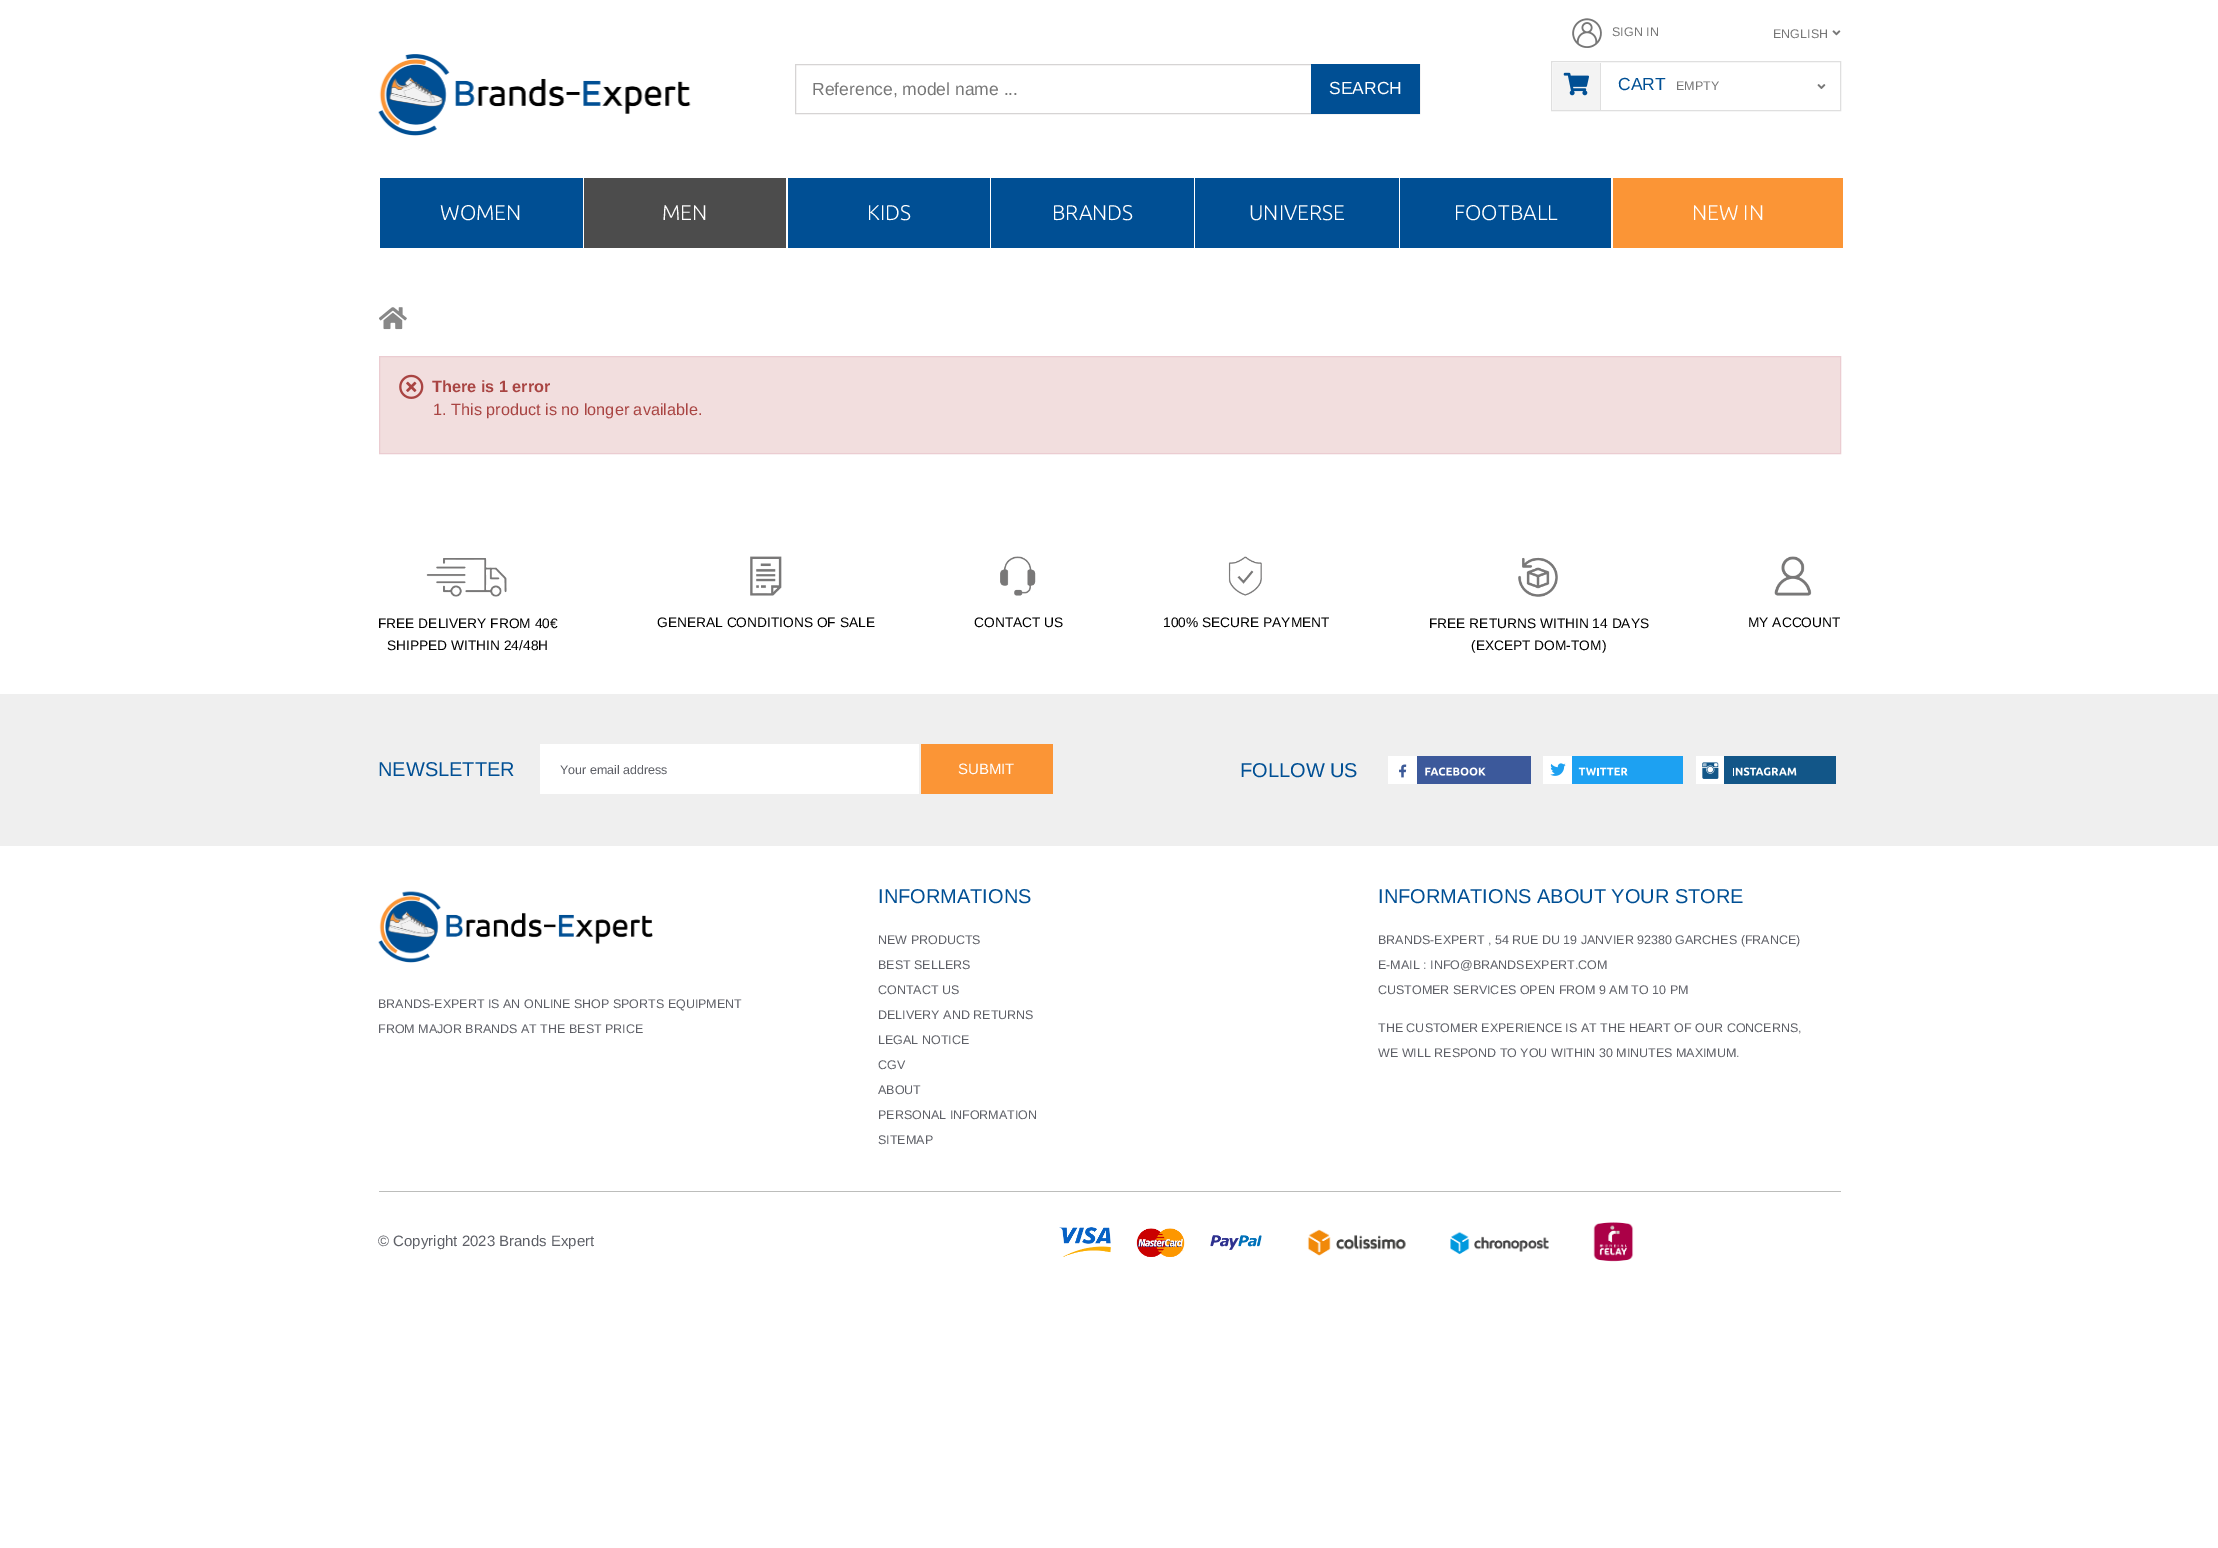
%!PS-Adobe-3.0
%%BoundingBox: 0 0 2218 1548
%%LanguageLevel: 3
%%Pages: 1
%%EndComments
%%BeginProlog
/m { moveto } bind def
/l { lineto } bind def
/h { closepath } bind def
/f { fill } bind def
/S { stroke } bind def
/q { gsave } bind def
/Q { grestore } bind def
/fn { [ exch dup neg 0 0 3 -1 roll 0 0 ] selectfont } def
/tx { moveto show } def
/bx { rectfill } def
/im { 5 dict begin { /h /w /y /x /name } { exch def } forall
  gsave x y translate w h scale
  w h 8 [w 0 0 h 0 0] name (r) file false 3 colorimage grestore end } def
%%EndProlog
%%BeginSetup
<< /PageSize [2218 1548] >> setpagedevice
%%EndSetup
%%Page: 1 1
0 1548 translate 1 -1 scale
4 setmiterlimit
1 setgray
0 0 2218 1548 bx
(image0.raw) 1572 18 30 30 im
/LiberationSans-Regular 12.5 fn
0.467 setgray
(SIGN IN) 1612 36 tx
(ENGLISH) 1773 38 tx
(image1.raw) 1832 30 9 6 im
(image2.raw) 378 54 313 82 im
0.839 0.831 0.831 setrgbcolor
795.5 64.5 624 49 rectstroke
/LiberationSans-Regular 17.5 fn
0.467 setgray
(Reference, model name ...) 812 95 tx
0 0.31 0.58 setrgbcolor
1311 64 109 50 bx
1 setgray
(SEARCH) 1329 94 tx
0.875 setgray
1551.5 61.5 289 49 rectstroke
0.953 setgray
1553 63 47 47 bx
0.875 setgray
1600 63 1 47 bx
(image3.raw) 1563 72 26 24 im
0 0.31 0.58 setrgbcolor
(CART) 1618 90 tx
/LiberationSans-Regular 12.5 fn
0.467 setgray
(EMPTY) 1676 90 tx
(image4.raw) 1817 84 9 5 im
0 0.31 0.58 setrgbcolor
380 178 203 70 bx
/Ubuntu-Light 21.25 fn
1 setgray
(WOMEN) 440 220 tx
0.298 setgray
584 178 202 70 bx
1 setgray
(MEN) 662 220 tx
0 0.31 0.58 setrgbcolor
788 178 202 70 bx
1 setgray
(KIDS) 867 220 tx
0 0.31 0.58 setrgbcolor
991 178 203 70 bx
1 setgray
(BRANDS) 1052 220 tx
0 0.31 0.58 setrgbcolor
1195 178 204 70 bx
1 setgray
(UNIVERSE) 1249 220 tx
0 0.31 0.58 setrgbcolor
1400 178 211 70 bx
1 setgray
(FOOTBALL) 1454 220 tx
0.984 0.584 0.212 setrgbcolor
1613 178 230 70 bx
1 setgray
(NEW IN) 1692 220 tx
(image5.raw) 379 307 28 23 im
0.949 0.871 0.871 setrgbcolor
379.5 356.5 m 1840.5 356.5 l 1840.5 453.5 l 379.5 453.5 l h q f Q
0.922 0.8 0.82 setrgbcolor
S
(image6.raw) 399 374 25 25 im
/LiberationSans-Bold 16.25 fn
0.663 0.267 0.259 setrgbcolor
(There is 1 error) 432 392 tx
/LiberationSans-Regular 16.25 fn
(1. This product is no longer available.) 433 415 tx
(image7.raw) 426 558 81 39 im
/LiberationSans-Regular 13.75 fn
0 setgray
(FREE DELIVERY FROM 40€) 378 628 tx
(SHIPPED WITHIN 24/48H) 387 650 tx
(image8.raw) 750 556 32 40 im
(GENERAL CONDITIONS OF SALE) 657 627 tx
(image9.raw) 1000 556 36 40 im
(CONTACT US) 974 627 tx
(image10.raw) 1228 556 34 40 im
(100% SECURE PAYMENT) 1163 627 tx
(image11.raw) 1518 557 40 40 im
(FREE RETURNS WITHIN 14 DAYS) 1429 628 tx
(\(EXCEPT DOM-TOM\)) 1471 650 tx
(image12.raw) 1774 556 38 40 im
(MY ACCOUNT) 1748 627 tx
0.937 setgray
0 694 2218 152 bx
/LiberationSans-Regular 20 fn
0 0.31 0.58 setrgbcolor
(NEWSLETTER) 378 776 tx
1 setgray
540 744 379 50 bx
/LiberationSans-Regular 12.5 fn
0.369 0.376 0.404 setrgbcolor
(Your email address) 560 774 tx
0.984 0.584 0.212 setrgbcolor
921 744 132 50 bx
/LiberationSans-Regular 15 fn
1 setgray
(SUBMIT) 958 774 tx
/LiberationSans-Regular 20 fn
0 0.31 0.58 setrgbcolor
(FOLLOW US) 1240 777 tx
(image13.raw) 1388 756 143 28 im
(image14.raw) 1543 756 140 28 im
(image15.raw) 1696 756 140 28 im
(image16.raw) 378 891 275 72 im
/LiberationSans-Regular 12.5 fn
0.369 0.376 0.404 setrgbcolor
(BRANDS-EXPERT IS AN ONLINE SHOP SPORTS EQUIPMENT) 378 1008 tx
(FROM MAJOR BRANDS AT THE BEST PRICE) 378 1033 tx
/LiberationSans-Regular 20 fn
0 0.31 0.58 setrgbcolor
(INFORMATIONS) 878 903 tx
/LiberationSans-Regular 12.5 fn
0.369 0.376 0.404 setrgbcolor
(NEW PRODUCTS) 878 944 tx
(BEST SELLERS) 878 969 tx
(CONTACT US) 878 994 tx
(DELIVERY AND RETURNS) 878 1019 tx
(LEGAL NOTICE) 878 1044 tx
(CGV) 878 1069 tx
(ABOUT) 878 1094 tx
(PERSONAL INFORMATION) 878 1119 tx
(SITEMAP) 878 1144 tx
/LiberationSans-Regular 20 fn
0 0.31 0.58 setrgbcolor
(INFORMATIONS ABOUT YOUR STORE) 1378 903 tx
/LiberationSans-Regular 12.5 fn
0.369 0.376 0.404 setrgbcolor
(BRANDS-EXPERT , 54 RUE DU 19 JANVIER 92380 GARCHES \(FRANCE\)) 1378 944 tx
(E-MAIL : INFO@BRANDSEXPERT.COM) 1378 969 tx
(CUSTOMER SERVICES OPEN FROM 9 AM TO 10 PM) 1378 994 tx
(THE CUSTOMER EXPERIENCE IS AT THE HEART OF OUR CONCERNS,) 1378 1032 tx
(WE WILL RESPOND TO YOU WITHIN 30 MINUTES MAXIMUM.) 1378 1057 tx
0.737 0.741 0.733 setrgbcolor
379 1191 1462 1 bx
/LiberationSans-Regular 15 fn
0.369 0.376 0.404 setrgbcolor
(© Copyright 2023 Brands Expert) 378 1246 tx
(image17.raw) 1059 1227 52 30 im
(image18.raw) 1136 1228 49 29 im
(image19.raw) 1210 1235 52 15 im
(image20.raw) 1307 1229 99 27 im
(image21.raw) 1450 1231 99 24 im
(image22.raw) 1593 1222 41 40 im
showpage
%%EOF
